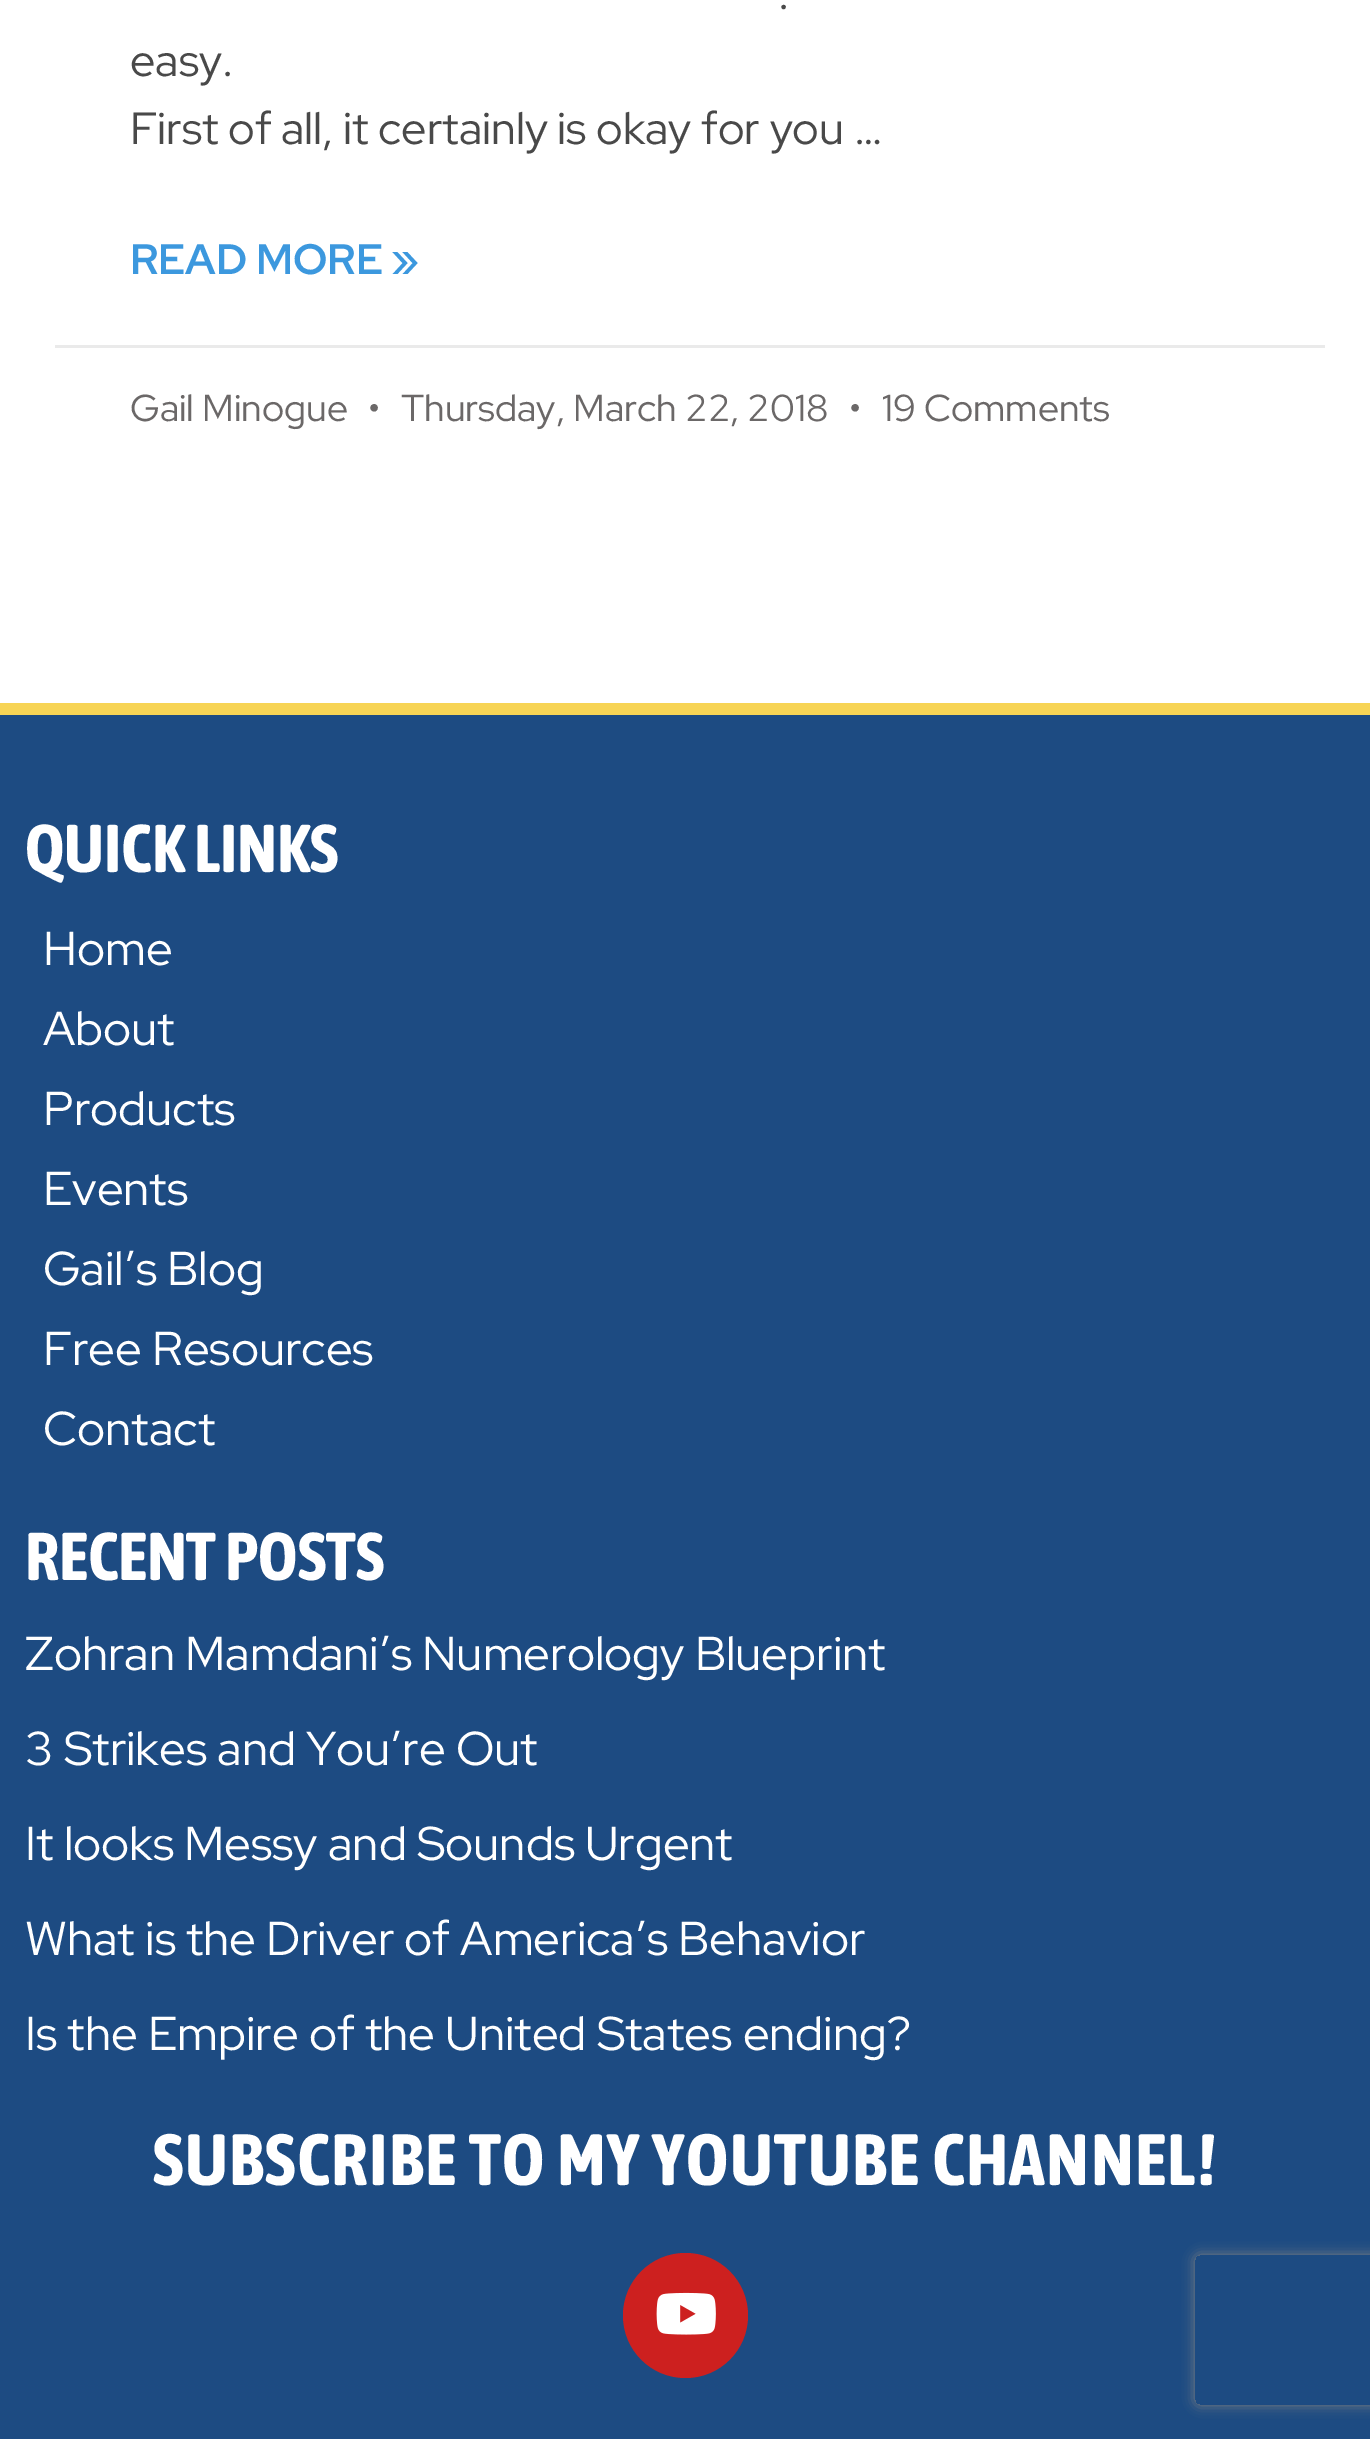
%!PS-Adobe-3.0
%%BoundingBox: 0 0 1370 2439
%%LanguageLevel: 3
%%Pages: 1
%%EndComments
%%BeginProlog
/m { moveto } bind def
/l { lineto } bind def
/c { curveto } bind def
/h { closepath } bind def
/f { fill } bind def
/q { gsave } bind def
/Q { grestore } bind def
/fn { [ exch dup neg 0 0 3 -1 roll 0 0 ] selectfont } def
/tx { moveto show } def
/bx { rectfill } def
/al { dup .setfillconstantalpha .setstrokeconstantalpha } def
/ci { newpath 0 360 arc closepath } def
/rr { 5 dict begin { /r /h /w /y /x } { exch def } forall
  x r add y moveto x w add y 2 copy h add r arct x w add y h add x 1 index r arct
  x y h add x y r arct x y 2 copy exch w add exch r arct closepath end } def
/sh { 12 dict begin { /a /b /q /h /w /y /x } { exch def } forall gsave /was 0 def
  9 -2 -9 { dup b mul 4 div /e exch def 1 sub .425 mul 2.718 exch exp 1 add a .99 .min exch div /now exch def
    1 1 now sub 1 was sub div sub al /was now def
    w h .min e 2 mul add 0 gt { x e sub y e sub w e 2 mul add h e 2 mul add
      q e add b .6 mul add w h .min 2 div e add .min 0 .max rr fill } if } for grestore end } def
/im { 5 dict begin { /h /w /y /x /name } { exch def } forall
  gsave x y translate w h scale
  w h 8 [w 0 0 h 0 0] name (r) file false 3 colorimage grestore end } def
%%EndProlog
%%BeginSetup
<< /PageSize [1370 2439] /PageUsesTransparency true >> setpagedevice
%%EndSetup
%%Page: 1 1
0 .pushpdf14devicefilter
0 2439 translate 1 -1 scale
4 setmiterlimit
1 setgray
0 0 1370 2439 bx
/RedHatDisplay-Regular 45 fn
0.286 setgray
(.) 778 9 tx
(easy.) 130 76 tx
(First of all, it certainly is okay for you …) 130 144 tx
/RedHatDisplay-Bold 42.5 fn
0.235 0.596 0.871 setrgbcolor
(READ MORE ») 130 274 tx
0.918 setgray
55 345 1270 3 bx
/RedHatDisplay-Regular 37.5 fn
0.42 0.408 0.408 setrgbcolor
(Gail Minogue) 130 421 tx
(•) 368 421 tx
(Thursday, March 22, 2018) 401 421 tx
(•) 849 421 tx
(19 Comments) 882 421 tx
0.969 0.831 0.333 setrgbcolor
0 703 1370 12 bx
0.114 0.294 0.51 setrgbcolor
0 715 1370 1724 bx
/AsapCondensed-Bold 67.5 fn
1 setgray
(QUICK LINKS) 25 872 tx
/RedHatDisplay-Regular 47.5 fn
(Home) 43 965 tx
(About) 43 1045 tx
(Products) 43 1125 tx
(Events) 43 1205 tx
(Gail’s Blog) 43 1285 tx
(Free Resources) 43 1365 tx
(Contact) 43 1445 tx
/AsapCondensed-Bold 67.5 fn
(RECENT POSTS) 25 1580 tx
/RedHatDisplay-Regular 47.5 fn
(Zohran Mamdani’s Numerology Blueprint) 25 1670 tx
(3 Strikes and You’re Out) 25 1765 tx
(It looks Messy and Sounds Urgent) 25 1860 tx
(What is the Driver of America’s Behavior) 25 1955 tx
(Is the Empire of the United States ending?) 25 2050 tx
/AsapCondensed-Bold 72.5 fn
153 2185 m 1.5 0 (SUBSCRIBE TO MY YOUTUBE CHANNEL!) ashow
0.804 0.125 0.122 setrgbcolor
685.5 2315.5 62.5 ci f
(image0.raw) 656 2292 60 43 im
q
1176 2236 m 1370 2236 l 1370 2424 l 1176 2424 l h 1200 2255 m 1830 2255 l 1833 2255 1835 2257 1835 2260 c 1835 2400 l 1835 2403 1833 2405 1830 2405 c 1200 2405 l 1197 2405 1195 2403 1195 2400 c 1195 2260 l 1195 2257 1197 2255 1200 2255 c h eoclip newpath
0.502 setgray
1195 2255 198 150 5 6 1 sh
Q
.poppdf14devicefilter showpage
%%EOF
